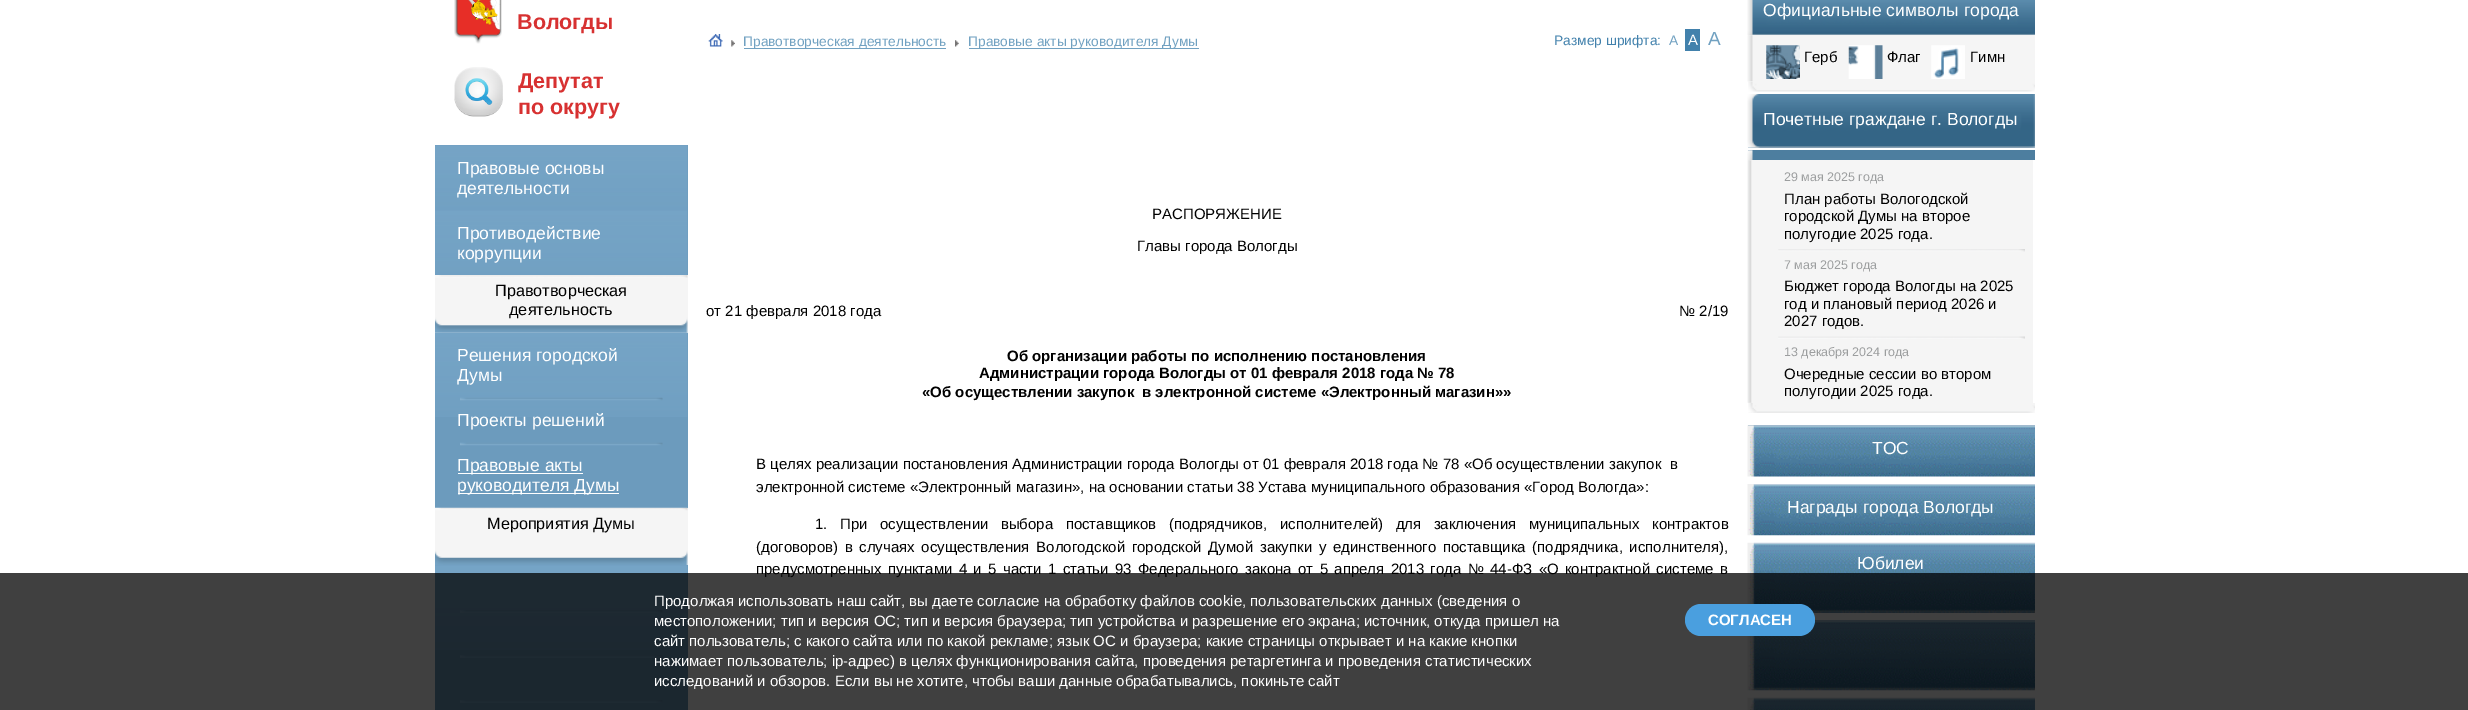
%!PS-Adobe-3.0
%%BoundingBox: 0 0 2468 710
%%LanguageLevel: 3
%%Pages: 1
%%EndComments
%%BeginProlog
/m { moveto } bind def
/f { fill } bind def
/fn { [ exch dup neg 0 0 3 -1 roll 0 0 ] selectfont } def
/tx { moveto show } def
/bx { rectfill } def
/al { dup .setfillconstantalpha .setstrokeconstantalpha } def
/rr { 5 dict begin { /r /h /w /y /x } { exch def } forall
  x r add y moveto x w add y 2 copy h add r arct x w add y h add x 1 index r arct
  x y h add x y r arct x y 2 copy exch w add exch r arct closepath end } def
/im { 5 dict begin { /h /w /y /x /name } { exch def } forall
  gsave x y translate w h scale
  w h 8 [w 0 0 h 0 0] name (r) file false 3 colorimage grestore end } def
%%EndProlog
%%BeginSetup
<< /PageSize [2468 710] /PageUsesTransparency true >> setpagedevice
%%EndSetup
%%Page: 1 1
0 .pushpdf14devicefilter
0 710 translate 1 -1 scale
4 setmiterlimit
1 setgray
0 0 2468 710 bx
(image0.raw) 454 0 48 44 im
/LiberationSans-Bold 21.5 fn
0.843 0.192 0.192 setrgbcolor
(Вологды) 517 29 tx
(image1.raw) 454 67 49 50 im
(Депутат) 518 88 tx
(по округу) 518 114 tx
0.424 0.608 0.741 setrgbcolor
435 145 253 130 bx
(image2.raw) 435 145 253 65 im
/LiberationSans-Regular 17.5 fn
1 setgray
(Правовые основы) 457 174 tx
(деятельности) 457 194 tx
(image2.raw) 435 210 253 65 im
(Противодействие) 457 239 tx
(коррупции) 457 259 tx
0.961 setgray
435 275 253 58 bx
(image3.raw) 435 275 253 58 im
/LiberationSans-Regular 16.25 fn
0 setgray
(Правотворческая) 495 296 tx
(деятельность) 509 315 tx
0.424 0.608 0.741 setrgbcolor
435 333 253 175 bx
(image4.raw) 435 332 253 85 im
/LiberationSans-Regular 17.5 fn
1 setgray
(Решения городской) 457 361 tx
(Думы) 457 381 tx
(image5.raw) 460 397 203 4 im
(Проекты решений) 457 426 tx
(image6.raw) 460 442 203 4 im
458 473 125 1 bx
(Правовые акты) 457 471 tx
458 493 161 1 bx
(руководителя Думы) 457 491 tx
0.961 setgray
687 508 1 57 bx
(image7.raw) 435 507 253 58 im
/LiberationSans-Regular 16.25 fn
0 setgray
(Мероприятия Думы) 487 529 tx
0.424 0.608 0.741 setrgbcolor
435 565 253 145 bx
(image8.raw) 435 565 253 85 im
(image9.raw) 460 610 203 3 im
(image10.raw) 460 655 203 3 im
(image10.raw) 460 700 203 3 im
(image11.raw) 708 34 15 13 im
(image12.raw) 731 40 4 7 im
0.443 0.631 0.757 setrgbcolor
744 48 202 1 bx
/LiberationSans-Regular 13.75 fn
(Правотворческая деятельность) 743 46 tx
(image13.raw) 955 40 4 7 im
969 48 230 1 bx
(Правовые акты руководителя Думы) 968 46 tx
0.259 0.506 0.675 setrgbcolor
(Размер шрифта:) 1554 45 tx
0.443 0.631 0.757 setrgbcolor
(А) 1669 45 tx
0.259 0.506 0.675 setrgbcolor
1685 29 15 22 bx
/LiberationSans-Regular 15 fn
1 setgray
(А) 1688 45 tx
/LiberationSans-Regular 19 fn
0.443 0.631 0.757 setrgbcolor
(А) 1708 45 tx
/LiberationSans-Regular 15 fn
0 setgray
(РАСПОРЯЖЕНИЕ) 1152 219 tx
(Главы города Вологды) 1137 251 tx
(от 21 февраля 2018 года) 706 316 tx
(№ 2/19) 1679 316 tx
/LiberationSans-Bold 15 fn
(Об организации работы по исполнению постановления) 1007 361 tx
(Администрации города Вологды от 01 февраля 2018 года № 78) 979 378 tx
(«Об осуществлении закупок) 922 397 tx
(в электронной системе «Электронный магазин»») 1142 397 tx
/LiberationSans-Regular 15 fn
(В целях реализации постановления Администрации города Вологды от 01 февраля 2018 года № 78 «Об осуществлении закупок  в) 756 469 tx
(электронной системе «Электронный магазин», на основании статьи 38 Устава муниципального образования «Город Вологда»:) 756 492 tx
815 529 m 8.25 0 32 (1. При осуществлении выбора поставщиков \(подрядчиков, исполнителей\) для заключения муниципальных контрактов) widthshow
756 552 m 2.5 0 32 (\(договоров\) в случаях осуществления Вологодской городской Думой закупки у единственного поставщика \(подрядчика, исполнителя\),) widthshow
756 574 m 2.2 0 32 (предусмотренных пунктами 4 и 5 части 1 статьи 93 Федерального закона от 5 апреля 2013 года № 44-ФЗ «О контрактной системе в) widthshow
(image14.raw) 1747 0 288 36 im
/LiberationSans-Regular 17.5 fn
1 setgray
(Официальные символы города) 1763 16 tx
(image15.raw) 1747 35 288 47 im
(image16.raw) 1766 45 34 34 im
/LiberationSans-Regular 15 fn
0 setgray
(Герб) 1804 62 tx
(image17.raw) 1848 45 35 34 im
(Флаг) 1887 62 tx
(image18.raw) 1931 45 34 34 im
(Гимн) 1970 62 tx
0.961 setgray
1748 81 287 1 bx
(image19.raw) 1748 81 287 11 im
(image20.raw) 1747 94 288 54 im
/LiberationSans-Regular 17.5 fn
1 setgray
(Почетные граждане г. Вологды) 1763 125 tx
0.302 0.494 0.624 setrgbcolor
1748 150 287 10 bx
(image21.raw) 1747 150 6 11 im
0.961 setgray
1748 160 285 243 bx
(image22.raw) 1747 160 5 243 im
/LiberationSans-Regular 12.5 fn
0.612 0.62 0.624 setrgbcolor
(29 мая 2025 года) 1784 181 tx
/LiberationSans-Regular 15 fn
0 setgray
(План работы Вологодской) 1784 204 tx
(городской Думы на второе) 1784 221 tx
(полугодие 2025 года.) 1784 239 tx
(image23.raw) 1778 249 247 3 im
/LiberationSans-Regular 12.5 fn
0.612 0.62 0.624 setrgbcolor
(7 мая 2025 года) 1784 269 tx
/LiberationSans-Regular 15 fn
0 setgray
(Бюджет города Вологды на 2025) 1784 291 tx
(год и плановый период 2026 и) 1784 309 tx
(2027 годов.) 1784 326 tx
(image24.raw) 1778 336 247 3 im
/LiberationSans-Regular 12.5 fn
0.612 0.62 0.624 setrgbcolor
(13 декабря 2024 года) 1784 356 tx
/LiberationSans-Regular 15 fn
0 setgray
(Очередные сессии во втором) 1784 379 tx
(полугодии 2025 года.) 1784 396 tx
(image25.raw) 1748 403 287 10 im
(image26.raw) 1747 425 288 52 im
/LiberationSans-Regular 17.5 fn
1 setgray
(ТОС) 1872 454 tx
(image27.raw) 1747 484 288 52 im
(Награды города Вологды) 1787 513 tx
(image28.raw) 1747 542 288 71 im
(Юбилеи) 1857 569 tx
(image29.raw) 1747 620 288 71 im
(image30.raw) 1747 697 288 13 im
0.75 al
0 setgray
0 573 2468 137 bx
/LiberationSans-Regular 15 fn
1 al
1 setgray
(Продолжая использовать наш сайт, вы даете согласие на обработку файлов cookie, пользовательских данных \(сведения о) 654 606 tx
(местоположении; тип и версия ОС; тип и версия браузера; тип устройства и разрешение его экрана; источник, откуда пришел на) 654 626 tx
(сайт пользователь; с какого сайта или по какой рекламе; язык ОС и браузера; какие страницы открывает и на какие кнопки) 654 646 tx
(нажимает пользователь; ip-адрес\) в целях функционирования сайта, проведения ретаргетинга и проведения статистических) 654 666 tx
(исследований и обзоров. Если вы не хотите, чтобы ваши данные обрабатывались, покиньте сайт) 654 686 tx
0.29 0.624 0.875 setrgbcolor
1685 604 130 32 16 rr f
/LiberationSans-Bold 15 fn
1 setgray
(СОГЛАСЕН) 1708 625 tx
.poppdf14devicefilter showpage
%%EOF
